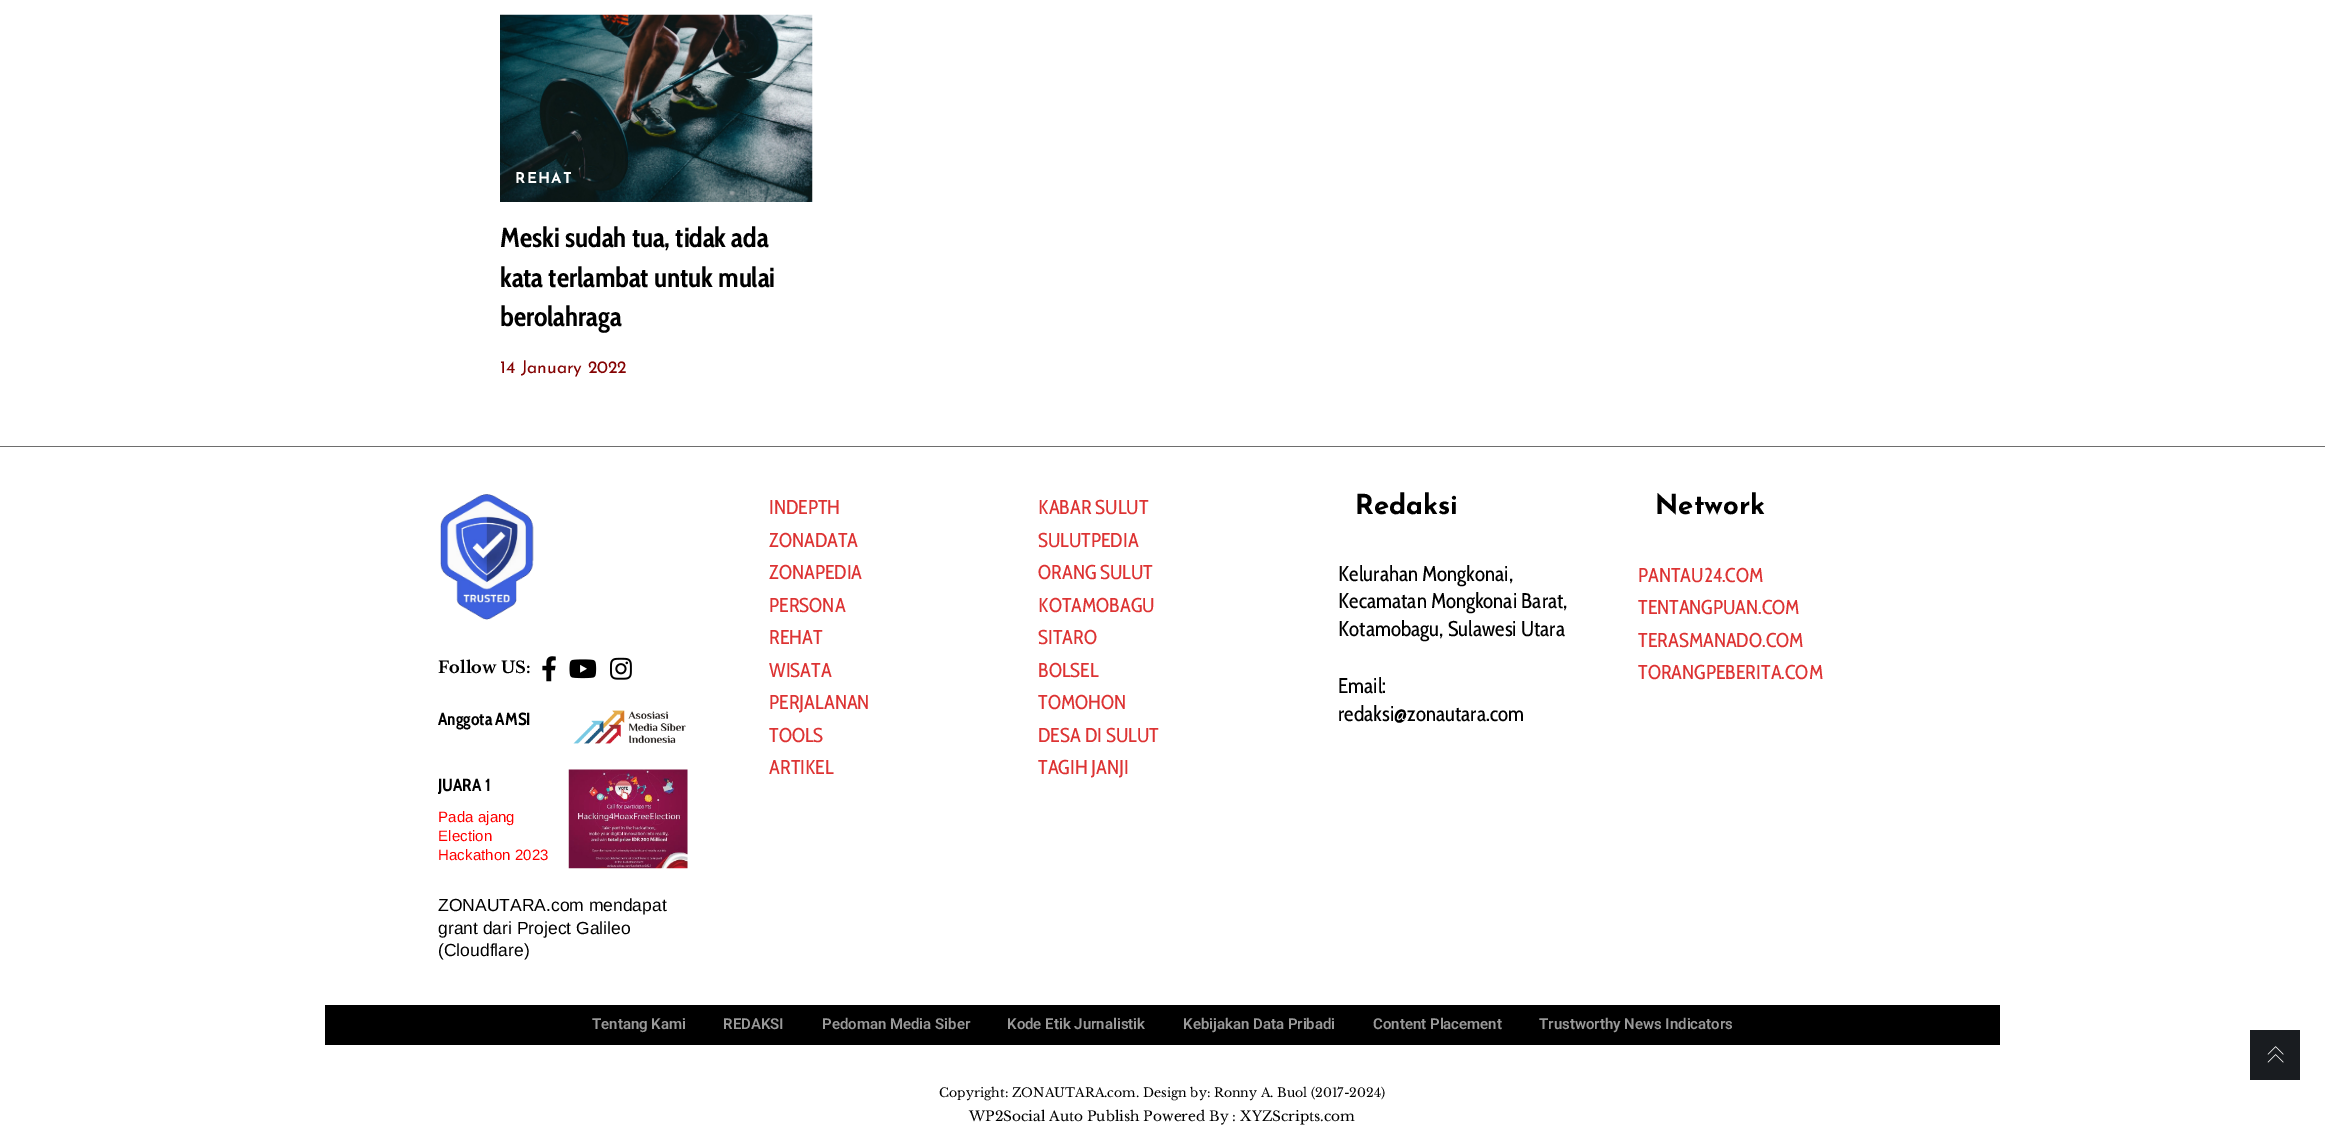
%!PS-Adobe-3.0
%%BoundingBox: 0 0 2325 1129
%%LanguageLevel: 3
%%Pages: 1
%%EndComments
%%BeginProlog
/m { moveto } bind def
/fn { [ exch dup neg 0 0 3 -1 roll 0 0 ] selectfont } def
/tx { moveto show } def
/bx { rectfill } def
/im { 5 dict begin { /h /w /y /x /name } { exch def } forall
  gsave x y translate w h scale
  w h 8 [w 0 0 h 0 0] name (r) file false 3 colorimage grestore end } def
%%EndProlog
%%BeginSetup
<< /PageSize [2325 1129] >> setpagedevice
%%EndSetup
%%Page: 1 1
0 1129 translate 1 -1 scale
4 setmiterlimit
1 setgray
0 0 2325 1129 bx
(image0.raw) 500 14 313 188 im
/JosefinSans-Bold 15 fn
515 183 m 1.25 0 (REHAT) ashow
/CabinCondensed-Bold 27.5 fn
0 setgray
(Meski sudah tua, tidak ada) 500 247 tx
(kata terlambat untuk mulai) 500 287 tx
(berolahraga) 500 326 tx
/JosefinSans-Regular 17.5 fn
0.518 0.008 0.008 setrgbcolor
(14 January 2022) 500 373 tx
0.431 setgray
0 446 2325 1 bx
(image1.raw) 440 494 94 126 im
/LibreBaskerville-Bold 16.25 fn
0 setgray
(Follow US:) 438 673 tx
(image2.raw) 542 656 14 26 im
(image3.raw) 569 659 28 20 im
(image4.raw) 610 657 22 23 im
/CabinCondensed-Bold 17.5 fn
(Anggota AMSI) 438 725 tx
(image5.raw) 573 710 113 34 im
(JUARA 1) 438 791 tx
/LiberationSans-Regular 15 fn
1 0 0 setrgbcolor
438 822 m 0.1 0 (Pada ajang) ashow
438 841 m 0.1 0 (Election) ashow
438 860 m 0.1 0 (Hackathon 2023) ashow
(image6.raw) 568 769 120 100 im
/LiberationSans-Regular 17.5 fn
0 setgray
(ZONAUTARA.com mendapat) 438 911 tx
(grant dari Project Galileo) 438 934 tx
(\(Cloudflare\)) 438 956 tx
/CabinCondensed-Regular 20 fn
0.867 0.2 0.2 setrgbcolor
(INDEPTH) 769 514 tx
(ZONADATA) 769 547 tx
(ZONAPEDIA) 769 579 tx
(PERSONA) 769 612 tx
(REHAT) 769 644 tx
(WISATA) 769 677 tx
(PERJALANAN) 769 709 tx
(TOOLS) 769 742 tx
(ARTIKEL) 769 774 tx
(KABAR SULUT) 1038 514 tx
(SULUTPEDIA) 1038 547 tx
(ORANG SULUT) 1038 579 tx
(KOTAMOBAGU) 1038 612 tx
(SITARO) 1038 644 tx
(BOLSEL) 1038 677 tx
(TOMOHON) 1038 709 tx
(DESA DI SULUT) 1038 742 tx
(TAGIH JANJI) 1038 774 tx
/JosefinSans-Bold 27.5 fn
0 setgray
(Redaksi) 1355 514 tx
/CabinCondensed-Regular 21.25 fn
(Kelurahan Mongkonai,) 1338 581 tx
(Kecamatan Mongkonai Barat,) 1338 608 tx
(Kotamobagu, Sulawesi Utara) 1338 636 tx
(Email:) 1338 693 tx
(redaksi@zonautara.com) 1338 721 tx
/JosefinSans-Bold 27.5 fn
(Network) 1655 514 tx
/CabinCondensed-Regular 20 fn
0.867 0.2 0.2 setrgbcolor
(PANTAU24.COM) 1638 582 tx
(TENTANGPUAN.COM) 1638 614 tx
(TERASMANADO.COM) 1638 647 tx
(TORANGPEBERITA.COM) 1638 679 tx
0 setgray
325 1005 1675 40 bx
/Roboto-SemiBold 15 fn
0.6 setgray
(Tentang Kami) 592 1029 tx
(REDAKSI) 723 1029 tx
(Pedoman Media Siber) 822 1029 tx
(Kode Etik Jurnalistik) 1007 1029 tx
(Kebijakan Data Pribadi) 1183 1029 tx
(Content Placement) 1373 1029 tx
(Trustworthy News Indicators) 1539 1029 tx
/LibreBaskerville-Regular 12.5 fn
0 setgray
(Copyright: ZONAUTARA.com. Design by: Ronny A. Buol \(2017-2024\)) 939 1097 tx
0.098 0.11 0.125 setrgbcolor
2250 1030 50 50 bx
(image7.raw) 2267 1046 17 17 im
/LibreBaskerville-Regular 13.75 fn
0 setgray
(WP2Social Auto Publish Powered By : XYZScripts.com) 969 1121 tx
showpage
%%EOF
